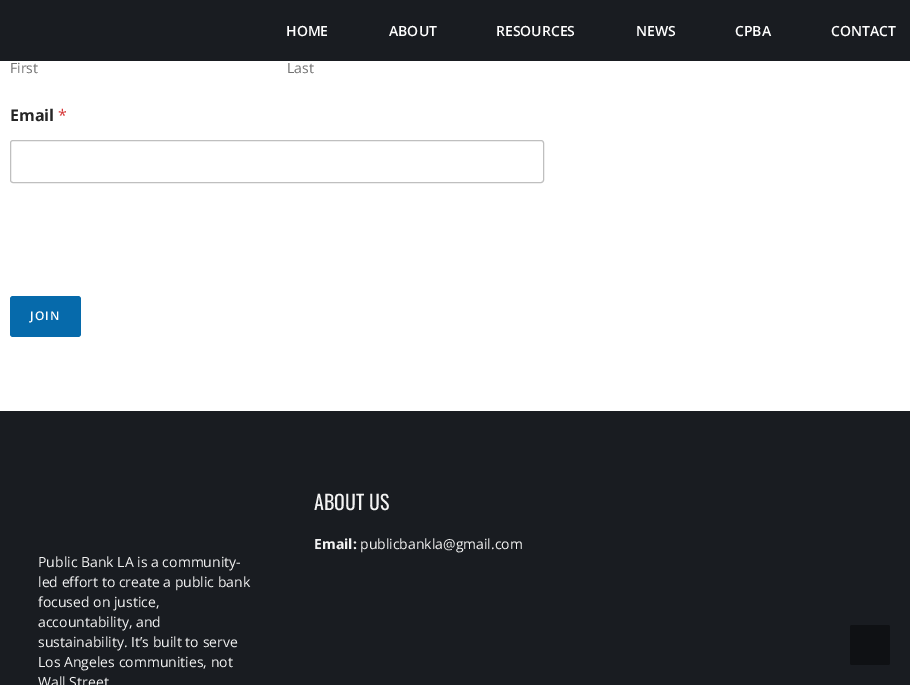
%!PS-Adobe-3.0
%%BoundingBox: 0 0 910 685
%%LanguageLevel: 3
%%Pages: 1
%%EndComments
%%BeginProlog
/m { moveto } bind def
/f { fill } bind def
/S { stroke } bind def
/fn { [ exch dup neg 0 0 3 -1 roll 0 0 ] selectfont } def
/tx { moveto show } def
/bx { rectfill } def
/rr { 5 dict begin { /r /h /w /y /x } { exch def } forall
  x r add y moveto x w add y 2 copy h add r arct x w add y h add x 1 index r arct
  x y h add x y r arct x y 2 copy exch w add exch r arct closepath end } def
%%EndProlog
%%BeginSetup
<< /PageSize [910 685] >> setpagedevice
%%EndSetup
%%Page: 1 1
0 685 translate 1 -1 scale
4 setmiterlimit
1 setgray
0 0 910 685 bx
0.098 0.11 0.129 setrgbcolor
0 0 910 61 bx
/OpenSans-SemiBold 14 fn
1 setgray
(HOME) 286 36 tx
(ABOUT) 389 36 tx
(RESOURCES) 496 36 tx
(NEWS) 636 36 tx
(CPBA) 735 36 tx
(CONTACT) 831 36 tx
/OpenSans-Regular 14 fn
0.451 setgray
(First) 10 73 tx
(Last) 287 73 tx
/OpenSans-Bold 16 fn
0.149 setgray
(Email) 10 121 tx
/OpenSans-Regular 16 fn
0.839 0.212 0.216 setrgbcolor
(*) 58 121 tx
0.749 setgray
10.5 140.5 533 42 2.5 rr S
0.024 0.416 0.671 setrgbcolor
10 296 71 41 3 rr f
/OpenSans-SemiBold 12 fn
1 setgray
30 320 m 1 0 (JOIN) ashow
0.098 0.11 0.129 setrgbcolor
0 411 910 274 bx
/Oswald-Regular 20 fn
0.953 setgray
(ABOUT US) 314 510 tx
/OpenSans-Bold 14 fn
(Email:) 314 549 tx
/OpenSans-Regular 14 fn
(publicbankla@gmail.com) 360 549 tx
(Public Bank LA is a community-) 38 567 tx
(led effort to create a public bank) 38 587 tx
(focused on justice,) 38 607 tx
(accountability, and) 38 627 tx
(sustainability. It’s built to serve) 38 647 tx
(Los Angeles communities, not) 38 667 tx
(Wall Street) 38 687 tx
0.059 0.067 0.078 setrgbcolor
850 625 40 40 2 rr f
showpage
%%EOF
